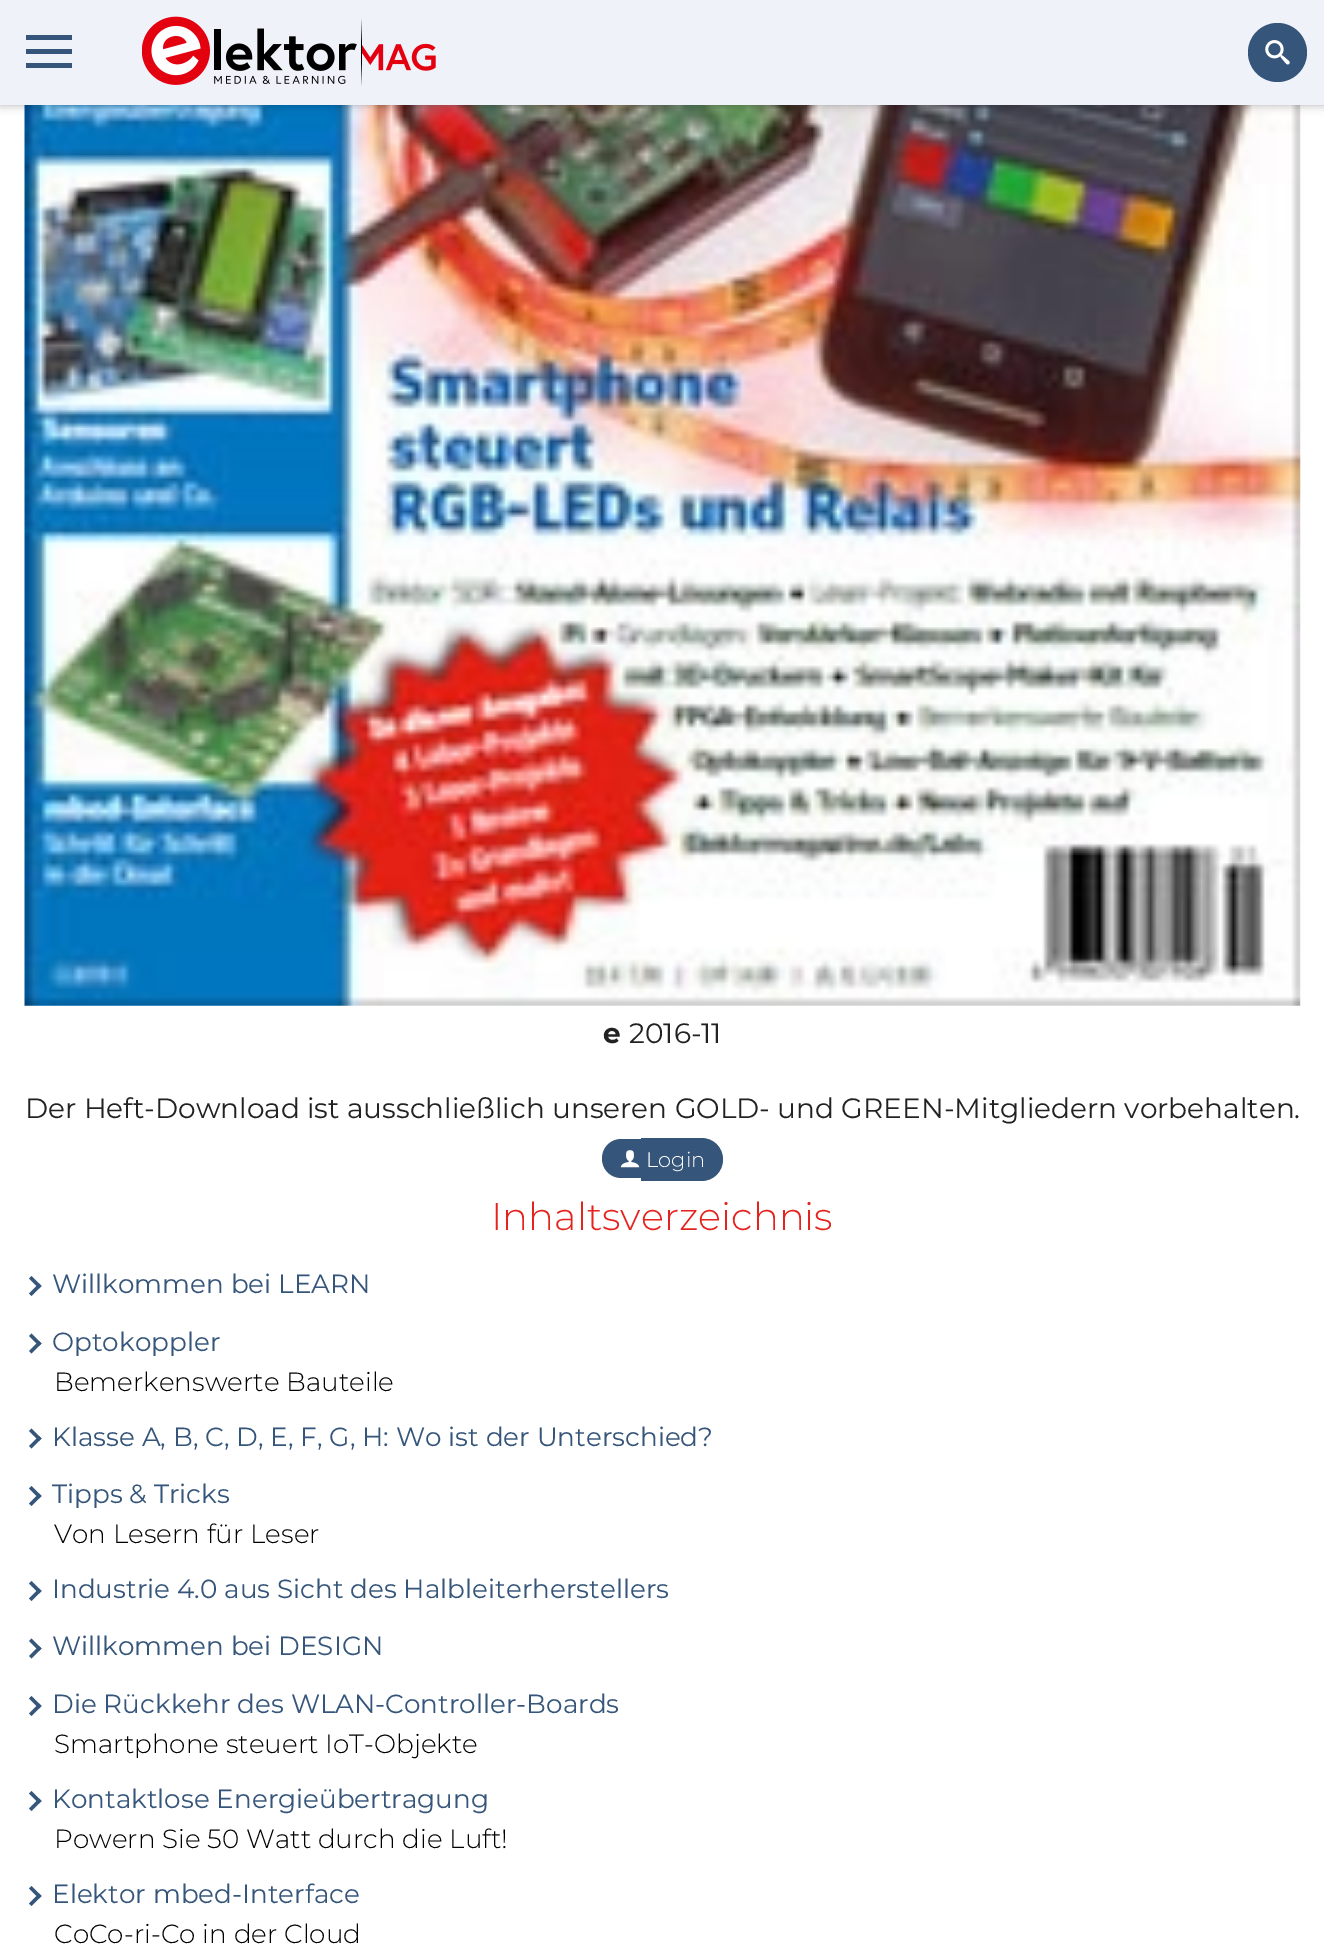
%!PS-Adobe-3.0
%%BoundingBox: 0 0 1324 1950
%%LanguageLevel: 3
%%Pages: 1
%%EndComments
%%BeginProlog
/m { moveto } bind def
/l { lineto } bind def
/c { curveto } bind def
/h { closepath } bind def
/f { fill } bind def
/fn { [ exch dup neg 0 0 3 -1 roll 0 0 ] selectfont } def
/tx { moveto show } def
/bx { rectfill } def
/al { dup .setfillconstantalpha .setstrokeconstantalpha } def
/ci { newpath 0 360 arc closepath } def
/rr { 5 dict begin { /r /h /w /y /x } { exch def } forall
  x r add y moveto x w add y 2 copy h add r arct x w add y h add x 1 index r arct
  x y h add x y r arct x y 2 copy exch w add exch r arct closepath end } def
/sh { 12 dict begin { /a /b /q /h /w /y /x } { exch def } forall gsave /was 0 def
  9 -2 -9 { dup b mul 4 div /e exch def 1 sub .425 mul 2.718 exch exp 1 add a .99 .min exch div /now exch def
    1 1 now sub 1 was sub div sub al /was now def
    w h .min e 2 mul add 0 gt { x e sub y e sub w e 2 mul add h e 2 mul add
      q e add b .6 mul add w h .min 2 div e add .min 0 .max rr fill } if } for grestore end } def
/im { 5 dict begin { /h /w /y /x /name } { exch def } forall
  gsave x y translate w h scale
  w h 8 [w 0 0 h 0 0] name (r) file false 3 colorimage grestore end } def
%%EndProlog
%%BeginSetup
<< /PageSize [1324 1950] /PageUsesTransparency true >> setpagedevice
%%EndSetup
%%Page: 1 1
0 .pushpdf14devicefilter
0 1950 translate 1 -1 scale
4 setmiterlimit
1 setgray
0 0 1324 1950 bx
(image2.raw) 24 105 1277 901 im
0 setgray
0 0 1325 105 0 5 0.3 sh
0.941 0.949 0.98 setrgbcolor
0 0 1324 105 bx
0.208 0.333 0.478 setrgbcolor
26 35 46 5 bx
26 49 46 5 bx
26 63 46 5 bx
(image0.raw) 142 16 294 70 im
1277.5 52.5 29.5 ci f
(image1.raw) 1265 40 25 25 im
/Montserrat-Bold 28 fn
0.133 setgray
(e) 603 1043 tx
/Montserrat-Regular 28 fn
(2016-11) 629 1043 tx
(Der Heft-Download ist ausschließlich unseren GOLD- und GREEN-Mitgliedern vorbehalten.) 25 1118 tx
0.208 0.333 0.478 setrgbcolor
621.5 1139 m 641 1139 l 641 1178 l 621.5 1178 l 610.5 1178 602 1169.5 602 1158.5 c 602 1147.5 610.5 1139 621.5 1139 c h f
(image3.raw) 620 1150 20 18 im
641 1138 m 701.5 1138 l 713.5 1138 723 1147.5 723 1159.5 c 723 1171.5 713.5 1181 701.5 1181 c 641 1181 l h f
/Montserrat-Light 21 fn
1 setgray
(Login) 646 1167 tx
/Montserrat-Light 38.5 fn
0.894 0.137 0.118 setrgbcolor
(Inhaltsverzeichnis) 491 1230 tx
0.208 0.333 0.478 setrgbcolor
29 1278.5 m 31.5 1276 l 41.5 1286 l 39 1288.5 l h f
29 1293.5 m 39 1283.5 l 41.5 1286 l 31.5 1296 l h 29 1336 m 31.5 1333.5 l 41.5 1343.5 l 39 1346 l h f
/Montserrat-Regular 26.25 fn
(Willkommen bei LEARN) 52 1293 tx
29 1351 m 39 1341 l 41.5 1343.5 l 31.5 1353.5 l h f
(Optokoppler) 52 1351 tx
/Montserrat-Light 26.25 fn
0 setgray
(Bemerkenswerte Bauteile) 54 1391 tx
0.208 0.333 0.478 setrgbcolor
29 1431 m 31.5 1428.5 l 41.5 1438.5 l 39 1441 l h f
29 1446 m 39 1436 l 41.5 1438.5 l 31.5 1448.5 l h 29 1488.5 m 31.5 1486 l 41.5 1496 l 39 1498.5 l h f
/Montserrat-Regular 26.25 fn
(Klasse A, B, C, D, E, F, G, H: Wo ist der Unterschied?) 52 1446 tx
29 1503.5 m 39 1493.5 l 41.5 1496 l 31.5 1506 l h f
(Tipps & Tricks) 52 1503 tx
/Montserrat-Light 26.25 fn
0 setgray
(Von Lesern für Leser) 54 1543 tx
0.208 0.333 0.478 setrgbcolor
29 1583.5 m 31.5 1581 l 41.5 1591 l 39 1593.5 l h f
29 1598.5 m 39 1588.5 l 41.5 1591 l 31.5 1601 l h 29 1641 m 31.5 1638.5 l 41.5 1648.5 l 39 1651 l h f
/Montserrat-Regular 26.25 fn
(Industrie 4.0 aus Sicht des Halbleiterherstellers) 52 1598 tx
29 1656 m 39 1646 l 41.5 1648.5 l 31.5 1658.5 l h 29 1698.5 m 31.5 1696 l 41.5 1706 l 39 1708.5 l h f
(Willkommen bei DESIGN) 52 1655 tx
29 1713.5 m 39 1703.5 l 41.5 1706 l 31.5 1716 l h f
(Die Rückkehr des WLAN-Controller-Boards) 52 1713 tx
/Montserrat-Light 26.25 fn
0 setgray
(Smartphone steuert IoT-Objekte) 54 1753 tx
0.208 0.333 0.478 setrgbcolor
29 1793.5 m 31.5 1791 l 41.5 1801 l 39 1803.5 l h f
29 1808.5 m 39 1798.5 l 41.5 1801 l 31.5 1811 l h f
/Montserrat-Regular 26.25 fn
(Kontaktlose Energieübertragung) 52 1808 tx
/Montserrat-Light 26.25 fn
0 setgray
(Powern Sie 50 Watt durch die Luft!) 54 1848 tx
0.208 0.333 0.478 setrgbcolor
29 1888.5 m 31.5 1886 l 41.5 1896 l 39 1898.5 l h f
29 1903.5 m 39 1893.5 l 41.5 1896 l 31.5 1906 l h f
/Montserrat-Regular 26.25 fn
(Elektor mbed-Interface) 52 1903 tx
/Montserrat-Light 26.25 fn
0 setgray
(CoCo-ri-Co in der Cloud) 54 1943 tx
.poppdf14devicefilter showpage
%%EOF
